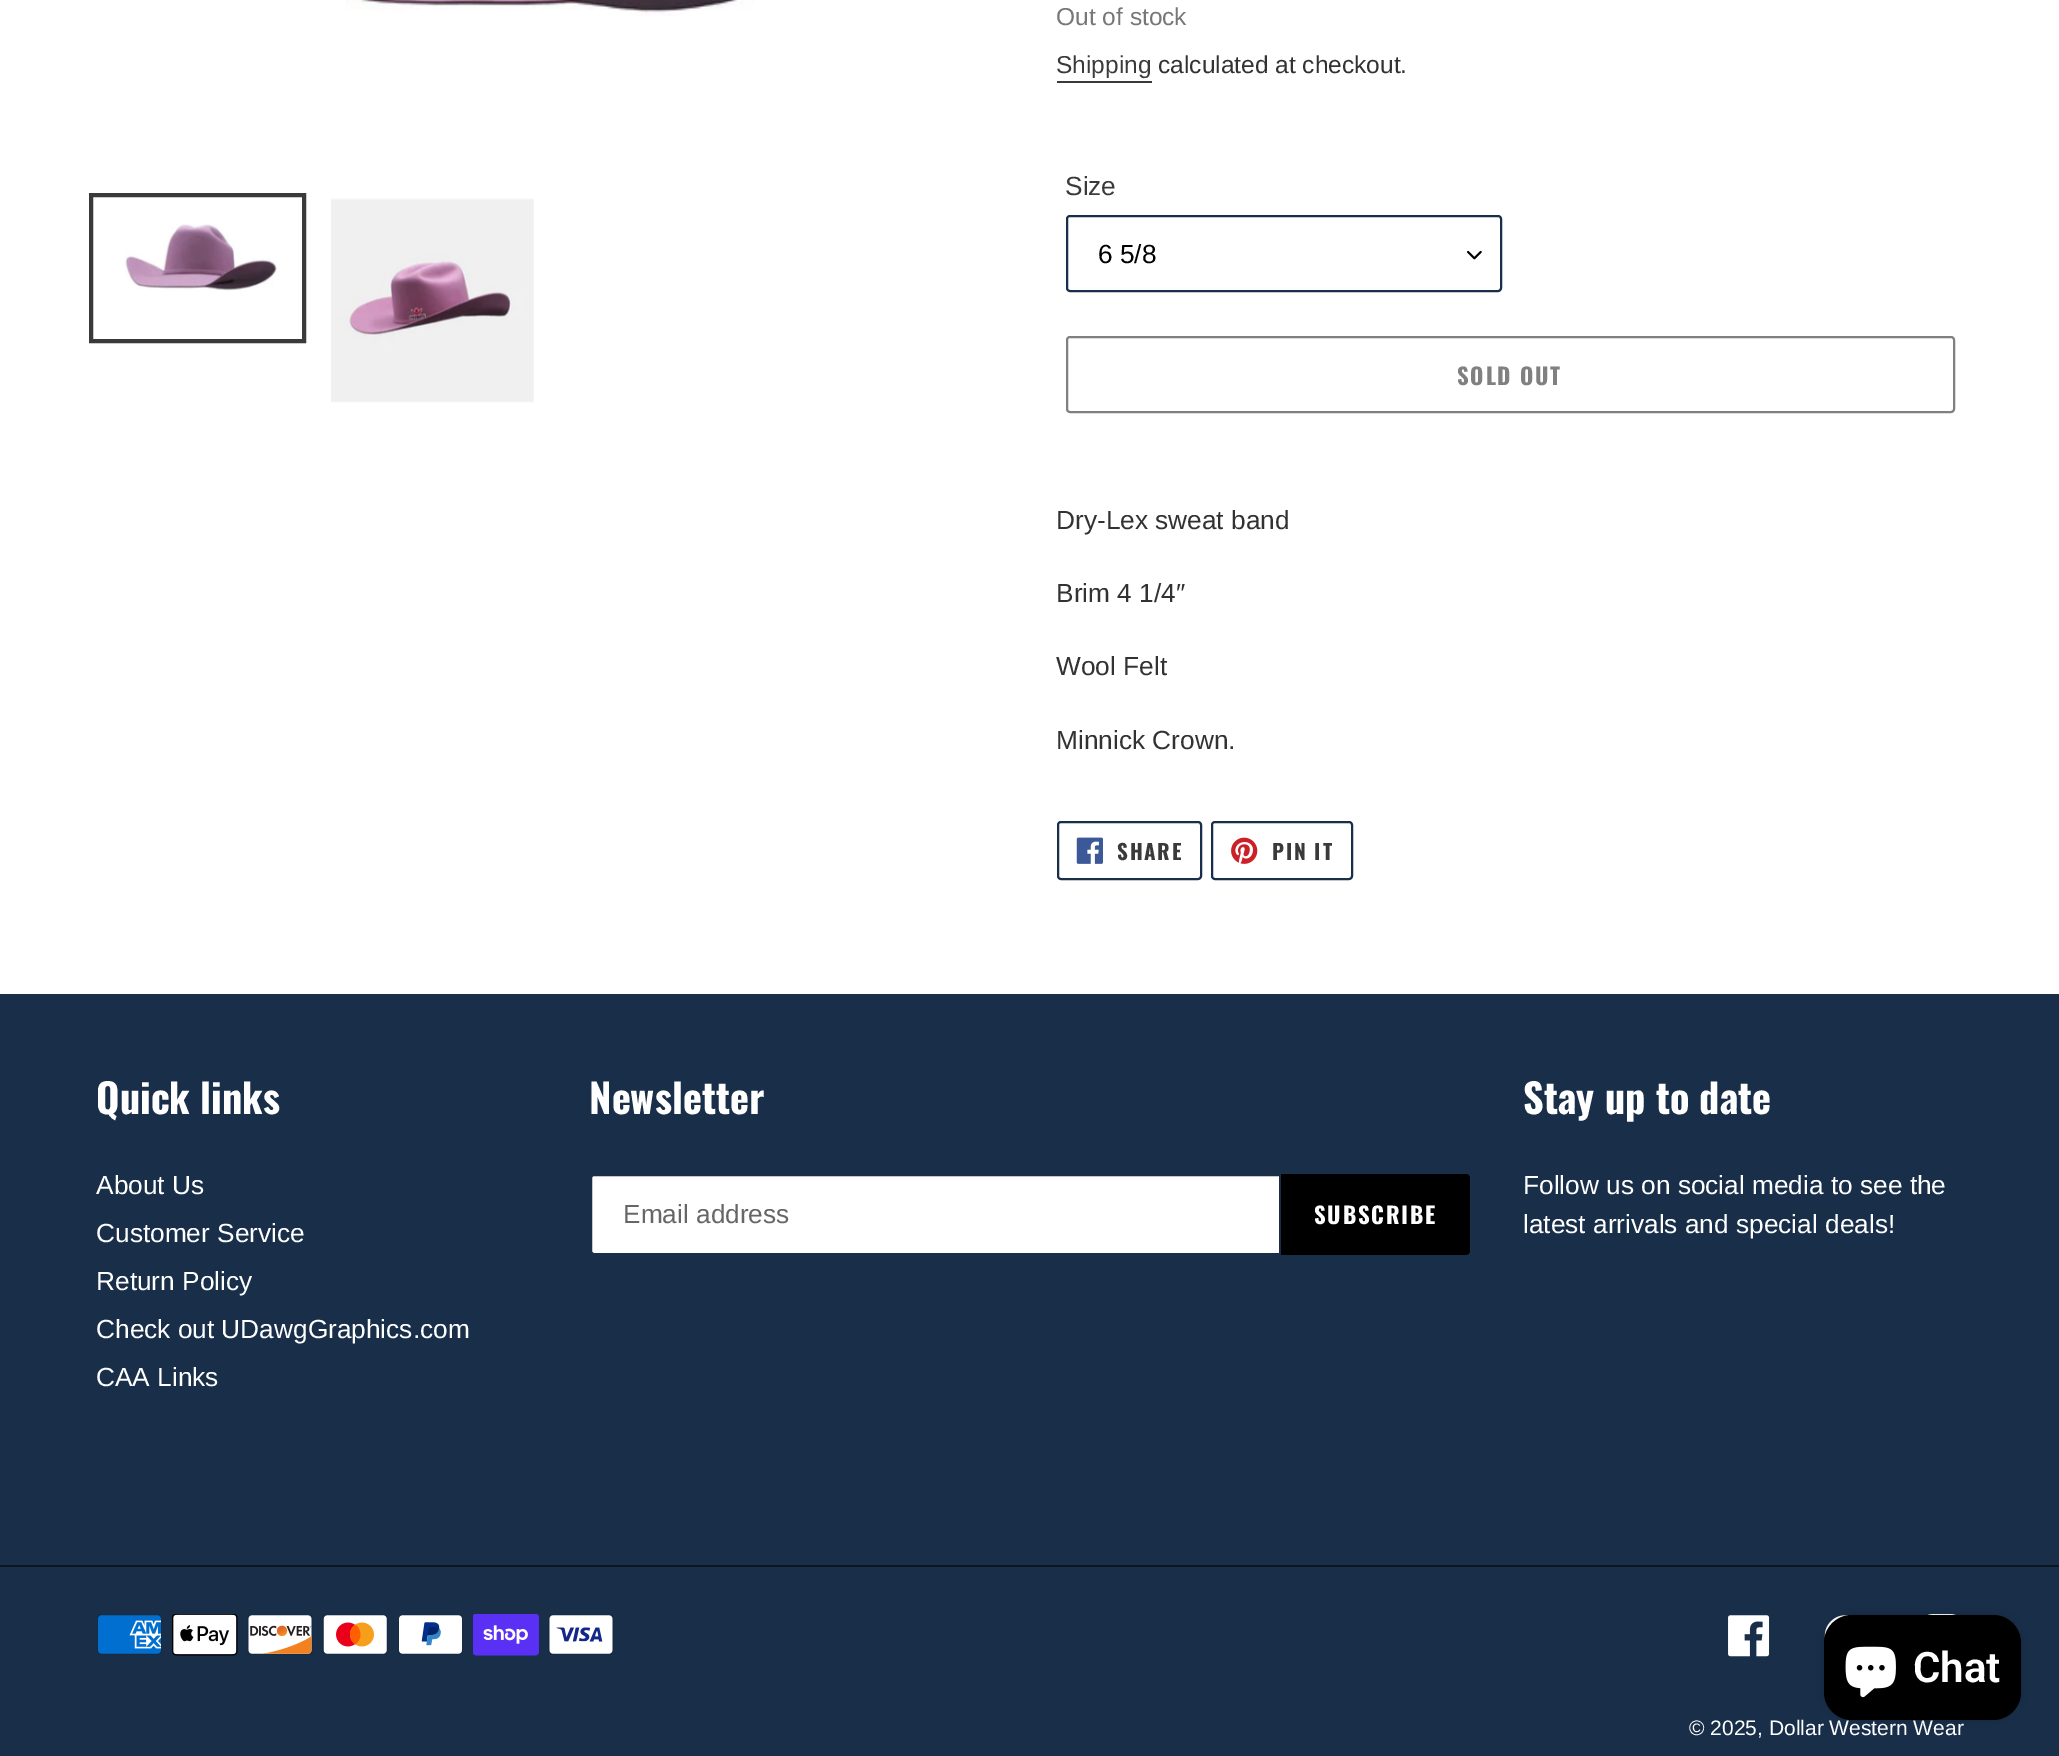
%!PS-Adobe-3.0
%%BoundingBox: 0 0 2059 1756
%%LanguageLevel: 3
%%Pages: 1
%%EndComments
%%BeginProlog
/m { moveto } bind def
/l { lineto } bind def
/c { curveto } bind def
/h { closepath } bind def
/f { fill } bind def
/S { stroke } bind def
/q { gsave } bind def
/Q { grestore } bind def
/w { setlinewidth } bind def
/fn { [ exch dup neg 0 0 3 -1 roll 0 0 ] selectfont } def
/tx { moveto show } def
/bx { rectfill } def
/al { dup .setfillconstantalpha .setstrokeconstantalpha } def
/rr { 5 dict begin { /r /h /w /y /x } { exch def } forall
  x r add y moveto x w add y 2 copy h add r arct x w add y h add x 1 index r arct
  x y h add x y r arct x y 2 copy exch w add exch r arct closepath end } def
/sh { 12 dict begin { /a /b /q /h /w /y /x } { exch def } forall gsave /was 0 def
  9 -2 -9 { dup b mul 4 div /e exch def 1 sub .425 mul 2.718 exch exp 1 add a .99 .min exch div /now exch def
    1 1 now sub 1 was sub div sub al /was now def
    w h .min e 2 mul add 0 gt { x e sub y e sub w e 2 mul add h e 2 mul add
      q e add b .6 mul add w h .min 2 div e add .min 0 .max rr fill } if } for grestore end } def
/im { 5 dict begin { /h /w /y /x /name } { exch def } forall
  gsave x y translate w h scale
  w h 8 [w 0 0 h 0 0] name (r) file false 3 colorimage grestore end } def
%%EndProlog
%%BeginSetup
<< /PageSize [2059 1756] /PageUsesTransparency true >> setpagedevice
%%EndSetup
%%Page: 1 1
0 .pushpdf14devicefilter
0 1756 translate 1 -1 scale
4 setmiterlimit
1 setgray
0 0 2059 1756 bx
(image0.raw) 346 0 409 16 im
0.227 setgray
4 w
91 195 213 146 rectstroke
(image1.raw) 125 224 153 67 im
(image2.raw) 331 198 203 205 im
/LiberationSans-Regular 24.5 fn
0.467 setgray
(Out of stock) 1056 25 tx
0.227 setgray
(Shipping) 1056 73 tx
1057 81 95 2 bx
0.2 0.196 0.196 setrgbcolor
(calculated at checkout.) 1158 73 tx
/LiberationSans-Regular 26.25 fn
0.227 setgray
(Size) 1065 195 tx
(image3.raw) 1467 250 15 10 im
0.094 0.18 0.286 setrgbcolor
2 w
1067 216 434 75 3 rr S
0 setgray
(6 5/8) 1098 263 tx
0.502 setgray
1067 337 887 75 3 rr S
/Oswald-Bold 22.75 fn
1457 385 m 1.75 0 (SOLD OUT) ashow
/LiberationSans-Regular 26.25 fn
0.2 0.196 0.196 setrgbcolor
(Dry-Lex sweat band) 1056 529 tx
(Brim 4 1/4″) 1056 602 tx
(Wool Felt) 1056 675 tx
(Minnick Crown.) 1056 749 tx
0.094 0.18 0.286 setrgbcolor
1058 822 143 57 3 rr S
(image4.raw) 1076 837 27 27 im
/Oswald-Bold 21 fn
0.227 setgray
1117 860 m 1.75 0 (SHARE) ashow
0.094 0.18 0.286 setrgbcolor
1212 822 140 57 3 rr S
(image5.raw) 1231 837 27 27 im
0.227 setgray
1272 860 m 1.75 0 (PIN IT) ashow
0.094 0.18 0.286 setrgbcolor
0 994 2059 762 bx
/Oswald-Bold 40.25 fn
1 setgray
(Quick links) 96 1114 tx
/LiberationSans-Regular 26.25 fn
(About Us) 96 1194 tx
(Customer Service) 96 1242 tx
(Return Policy) 96 1290 tx
(Check out UDawgGraphics.com) 96 1338 tx
(CAA Links) 96 1386 tx
/Oswald-Bold 40.25 fn
(Newsletter) 589 1114 tx
594 1175 m 1280 1175 l 1280 1254 l 594 1254 l 592.5 1254 591 1252.5 591 1251 c 591 1178 l 591 1176.5 592.5 1175 594 1175 c h q f Q
0.094 0.18 0.286 setrgbcolor
S
/LiberationSans-Regular 26.25 fn
0.4 setgray
(Email address) 623 1223 tx
0 setgray
1281 1174 m 1466 1174 l 1468 1174 1470 1176 1470 1178 c 1470 1251 l 1470 1253 1468 1255 1466 1255 c 1281 1255 l h f
/Oswald-Bold 22.75 fn
1 setgray
1314 1224 m 1.75 0 (SUBSCRIBE) ashow
/Oswald-Bold 40.25 fn
(Stay up to date) 1523 1114 tx
/LiberationSans-Regular 26.25 fn
(Follow us on social media to see the) 1523 1194 tx
(latest arrivals and special deals!) 1523 1233 tx
0.043 0.086 0.137 setrgbcolor
0 1565 2059 2 bx
(image6.raw) 97 1614 65 41 im
(image7.raw) 172 1614 66 42 im
(image8.raw) 247 1614 66 41 im
(image9.raw) 322 1614 66 41 im
(image10.raw) 398 1614 65 41 im
(image11.raw) 473 1614 66 42 im
(image12.raw) 548 1614 66 41 im
(image13.raw) 1927 1614 29 1 im
(image14.raw) 1728 1615 42 42 im
(image15.raw) 1824 1615 27 23 im
/LiberationSans-Regular 21 fn
1 setgray
(© 2025, Dollar Western Wear) 1689 1735 tx
0 setgray
1824 1615 197 105 28 4.5 0.15 sh
1824 1615 197 105 28 rr f
(image16.raw) 1845 1646 51 52 im
/Roboto-SemiBold 42 fn
1 setgray
(Chat) 1913 1682 tx
.poppdf14devicefilter showpage
%%EOF
